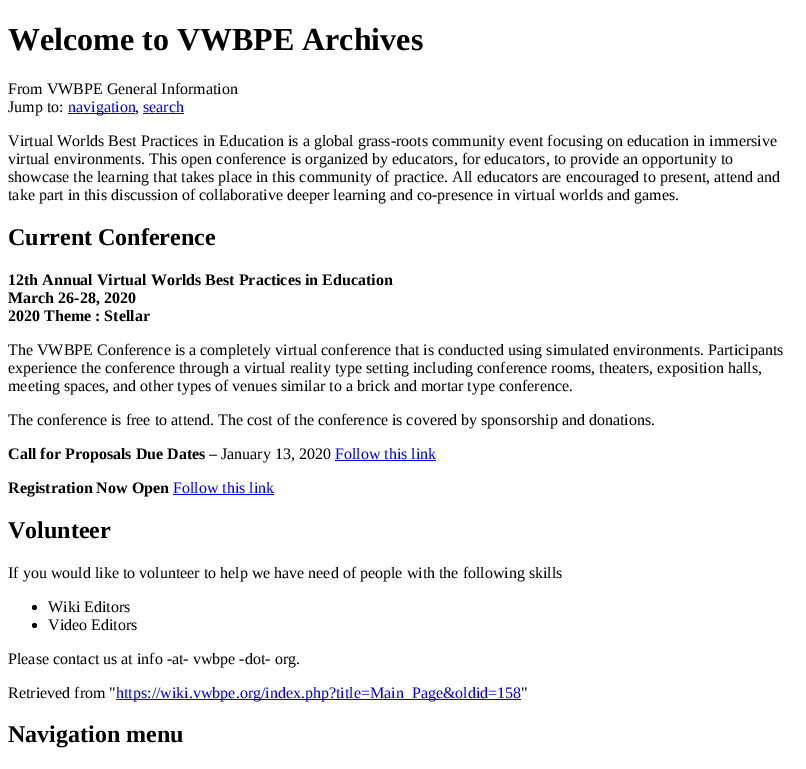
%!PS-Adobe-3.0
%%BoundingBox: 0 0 806 769
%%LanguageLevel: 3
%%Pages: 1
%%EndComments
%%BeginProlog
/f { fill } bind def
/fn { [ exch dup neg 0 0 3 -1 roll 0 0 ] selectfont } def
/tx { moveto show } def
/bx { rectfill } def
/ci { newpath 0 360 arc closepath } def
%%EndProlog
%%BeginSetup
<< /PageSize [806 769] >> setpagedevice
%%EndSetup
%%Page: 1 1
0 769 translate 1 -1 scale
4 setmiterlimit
1 setgray
0 0 806 769 bx
/LiberationSerif-Bold 32 fn
0 setgray
(Welcome to VWBPE Archives) 8 50 tx
/LiberationSerif-Regular 16 fn
(From VWBPE General Information) 8 94 tx
(Jump to:) 8 112 tx
0 0 0.933 setrgbcolor
68 113 67 1 bx
(navigation) 68 112 tx
0 setgray
(,) 135 112 tx
0 0 0.933 setrgbcolor
(search) 143 112 tx
143 113 41 1 bx
0 setgray
(Virtual Worlds Best Practices in Education is a global grass-roots community event focusing on education in immersive) 8 146 tx
(virtual environments. This open conference is organized by educators, for educators, to provide an opportunity to) 8 164 tx
(showcase the learning that takes place in this community of practice. All educators are encouraged to present, attend and) 8 182 tx
(take part in this discussion of collaborative deeper learning and co-presence in virtual worlds and games.) 8 200 tx
/LiberationSerif-Bold 24 fn
(Current Conference) 8 245 tx
/LiberationSerif-Bold 16 fn
(12th Annual Virtual Worlds Best Practices in Education) 8 285 tx
(March 26-28, 2020) 8 303 tx
(2020 Theme : Stellar) 8 321 tx
/LiberationSerif-Regular 16 fn
(The VWBPE Conference is a completely virtual conference that is conducted using simulated environments. Participants) 8 355 tx
(experience the conference through a virtual reality type setting including conference rooms, theaters, exposition halls,) 8 373 tx
(meeting spaces, and other types of venues similar to a brick and mortar type conference.) 8 391 tx
(The conference is free to attend. The cost of the conference is covered by sponsorship and donations.) 8 425 tx
/LiberationSerif-Bold 16 fn
(Call for Proposals Due Dates) 8 459 tx
/LiberationSerif-Regular 16 fn
(– January 13, 2020) 209 459 tx
0 0 0.933 setrgbcolor
(Follow this link) 335 459 tx
335 460 101 1 bx
/LiberationSerif-Bold 16 fn
0 setgray
(Registration Now Open) 8 493 tx
/LiberationSerif-Regular 16 fn
0 0 0.933 setrgbcolor
(Follow this link) 173 493 tx
173 494 101 1 bx
/LiberationSerif-Bold 24 fn
0 setgray
(Volunteer) 8 538 tx
/LiberationSerif-Regular 16 fn
(If you would like to volunteer to help we have need of people with the following skills) 8 578 tx
34.5 607.5 2.5 ci f
(Wiki Editors) 48 612 tx
34.5 625.5 2.5 ci f
(Video Editors) 48 630 tx
(Please contact us at info -at- vwbpe -dot- org.) 8 664 tx
(Retrieved from ") 8 698 tx
0 0 0.933 setrgbcolor
116 699 405 1 bx
(https://wiki.vwbpe.org/index.php?title=Main_Page&oldid=158) 116 698 tx
0 setgray
(") 521 698 tx
/LiberationSerif-Bold 24 fn
(Navigation menu) 8 742 tx
showpage
%%EOF
